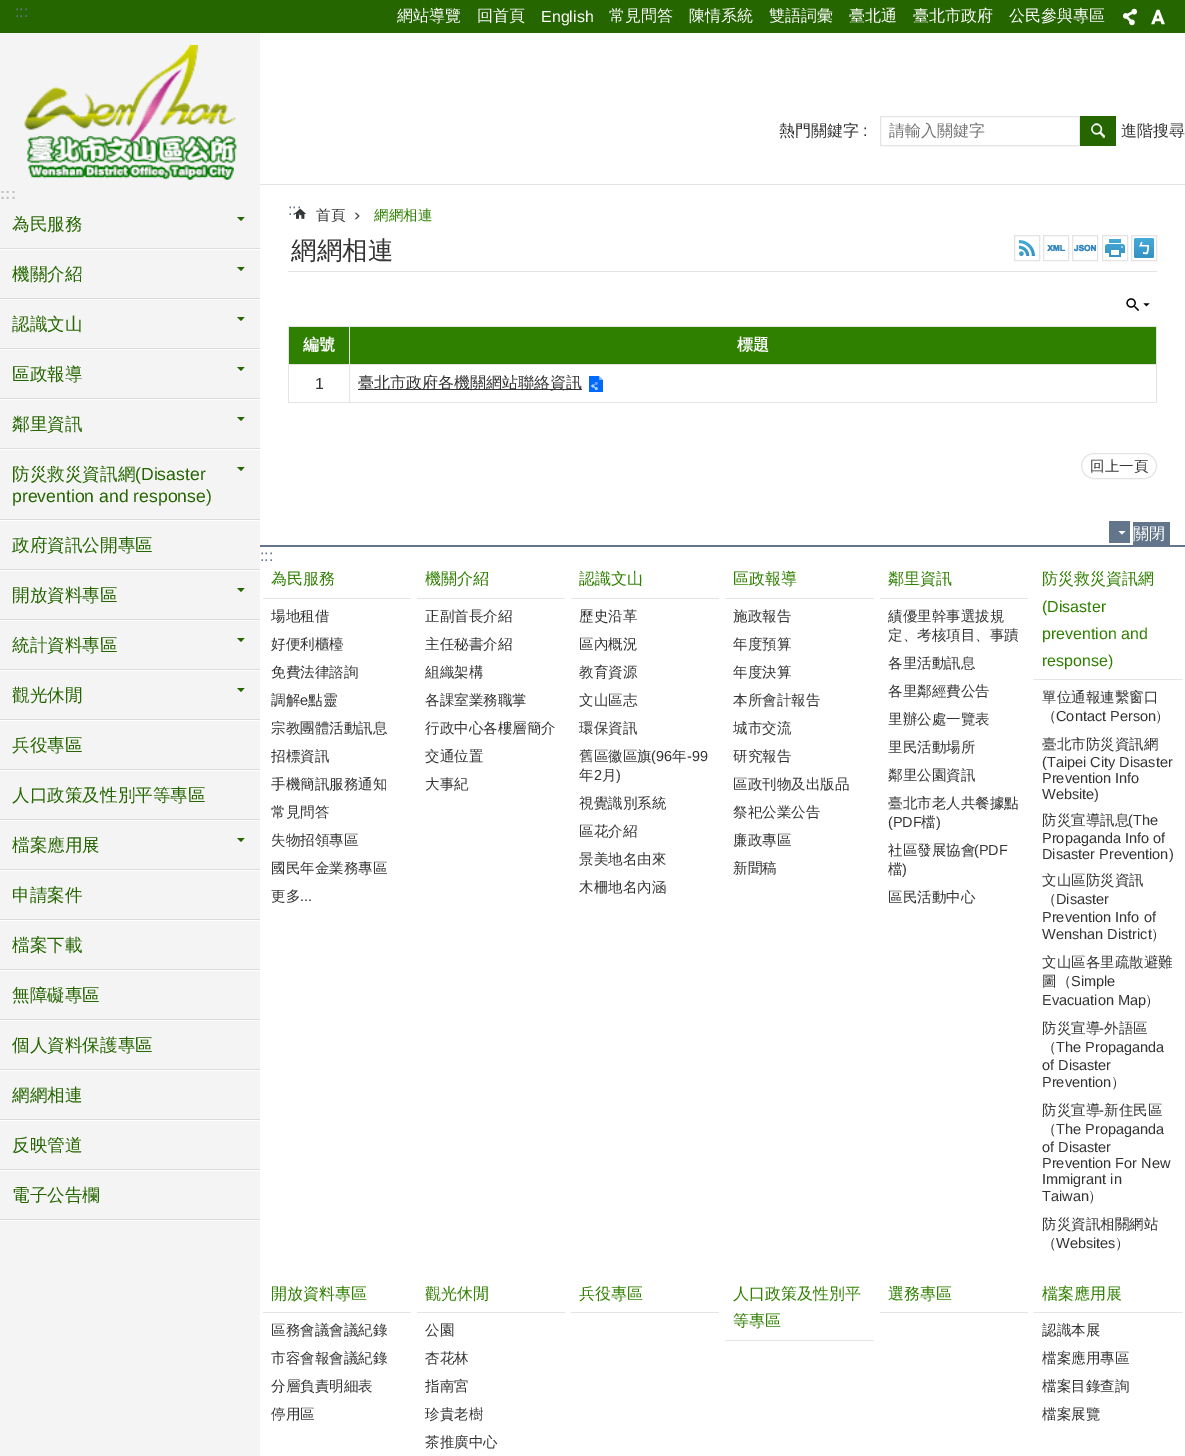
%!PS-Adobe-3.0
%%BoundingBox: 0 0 1185 1456
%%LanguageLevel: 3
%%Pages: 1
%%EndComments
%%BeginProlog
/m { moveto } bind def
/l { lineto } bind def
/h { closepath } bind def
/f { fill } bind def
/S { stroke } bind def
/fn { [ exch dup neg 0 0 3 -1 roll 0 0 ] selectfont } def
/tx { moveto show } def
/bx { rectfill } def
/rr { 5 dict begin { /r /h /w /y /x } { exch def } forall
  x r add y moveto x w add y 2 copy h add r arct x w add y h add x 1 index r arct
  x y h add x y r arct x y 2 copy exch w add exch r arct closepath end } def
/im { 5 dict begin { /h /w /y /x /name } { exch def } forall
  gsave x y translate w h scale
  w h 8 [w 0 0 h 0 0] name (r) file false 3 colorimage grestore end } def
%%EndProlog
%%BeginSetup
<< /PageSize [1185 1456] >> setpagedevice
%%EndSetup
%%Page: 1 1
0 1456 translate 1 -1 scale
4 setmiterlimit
1 setgray
0 0 1185 1456 bx
0.957 setgray
0 33 260 1423 bx
0.145 0.4 0 setrgbcolor
0 0 1185 33 bx
/LiberationSans-Regular 16 fn
0.388 0.459 0.545 setrgbcolor
(:::) 15 17 tx
/WenQuanYiZenHei-Medium 16 fn
1 setgray
(網站導覽) 397 21 tx
(回首頁) 477 21 tx
/LiberationSans-Regular 16 fn
(English) 541 22 tx
/WenQuanYiZenHei-Medium 16 fn
(常見問答) 609 21 tx
(陳情系統) 689 21 tx
(雙語詞彙) 769 21 tx
(臺北通) 849 21 tx
(臺北市政府) 913 21 tx
(公民參與專區) 1009 21 tx
(image0.raw) 1123 8 14 18 im
(image1.raw) 1151 9 14 16 im
(image2.raw) 24 45 213 135 im
/LiberationSans-Bold 16 fn
0.765 setgray
(:::) 0 199 tx
1 setgray
0 1220 260 1 bx
0.859 setgray
0 248 260 1 bx
/WenQuanYiZenHei-Medium 17.6 fn
0.145 0.4 0 setrgbcolor
(為民服務) 12 230 tx
237 217 m 244.5 217 l 241 221 l h f
1 setgray
0 249 260 1 bx
0.859 setgray
0 298 260 1 bx
0.145 0.4 0 setrgbcolor
(機關介紹) 12 280 tx
237 267 m 244.5 267 l 241 271 l h f
1 setgray
0 299 260 1 bx
0.859 setgray
0 348 260 1 bx
0.145 0.4 0 setrgbcolor
(認識文山) 12 330 tx
237 317 m 244.5 317 l 241 321 l h f
1 setgray
0 349 260 1 bx
0.859 setgray
0 398 260 1 bx
0.145 0.4 0 setrgbcolor
(區政報導) 12 380 tx
237 367 m 244.5 367 l 241 371 l h f
1 setgray
0 399 260 1 bx
0.859 setgray
0 448 260 1 bx
0.145 0.4 0 setrgbcolor
(鄰里資訊) 12 430 tx
237 417 m 244.5 417 l 241 421 l h f
1 setgray
0 449 260 1 bx
0.859 setgray
0 519 260 1 bx
0.145 0.4 0 setrgbcolor
(防災救災資訊網) 12 480 tx
/LiberationSans-Regular 17.6 fn
(\(Disaster) 135 480 tx
237 467 m 244.5 467 l 241 471 l h f
(prevention and response\)) 12 502 tx
1 setgray
0 520 260 1 bx
0.859 setgray
0 569 260 1 bx
/WenQuanYiZenHei-Medium 17.6 fn
0.145 0.4 0 setrgbcolor
(政府資訊公開專區) 12 551 tx
1 setgray
0 570 260 1 bx
0.859 setgray
0 619 260 1 bx
0.145 0.4 0 setrgbcolor
(開放資料專區) 12 601 tx
237 588 m 244.5 588 l 241 592 l h f
1 setgray
0 620 260 1 bx
0.859 setgray
0 669 260 1 bx
0.145 0.4 0 setrgbcolor
(統計資料專區) 12 651 tx
237 638 m 244.5 638 l 241 642 l h f
1 setgray
0 670 260 1 bx
0.859 setgray
0 719 260 1 bx
0.145 0.4 0 setrgbcolor
(觀光休閒) 12 701 tx
237 688 m 244.5 688 l 241 692 l h f
1 setgray
0 720 260 1 bx
0.859 setgray
0 769 260 1 bx
0.145 0.4 0 setrgbcolor
(兵役專區) 12 751 tx
1 setgray
0 770 260 1 bx
0.859 setgray
0 819 260 1 bx
0.145 0.4 0 setrgbcolor
(人口政策及性別平等專區) 12 801 tx
1 setgray
0 820 260 1 bx
0.859 setgray
0 869 260 1 bx
0.145 0.4 0 setrgbcolor
(檔案應用展) 12 851 tx
237 838 m 244.5 838 l 241 842 l h f
1 setgray
0 870 260 1 bx
0.859 setgray
0 919 260 1 bx
0.145 0.4 0 setrgbcolor
(申請案件) 12 901 tx
1 setgray
0 920 260 1 bx
0.859 setgray
0 969 260 1 bx
0.145 0.4 0 setrgbcolor
(檔案下載) 12 951 tx
1 setgray
0 970 260 1 bx
0.859 setgray
0 1019 260 1 bx
0.145 0.4 0 setrgbcolor
(無障礙專區) 12 1001 tx
1 setgray
0 1020 260 1 bx
0.859 setgray
0 1069 260 1 bx
0.145 0.4 0 setrgbcolor
(個人資料保護專區) 12 1051 tx
1 setgray
0 1070 260 1 bx
0.859 setgray
0 1119 260 1 bx
0.145 0.4 0 setrgbcolor
(網網相連) 12 1101 tx
1 setgray
0 1120 260 1 bx
0.859 setgray
0 1169 260 1 bx
0.145 0.4 0 setrgbcolor
(反映管道) 12 1151 tx
1 setgray
0 1170 260 1 bx
0.859 setgray
0 1219 260 1 bx
0.145 0.4 0 setrgbcolor
(電子公告欄) 12 1201 tx
0.894 setgray
260 184 925 1 bx
/WenQuanYiZenHei-Medium 16 fn
0.204 setgray
(熱門關鍵字) 779 136 tx
/LiberationSans-Regular 16 fn
(:) 863 136 tx
0.894 setgray
880.5 116.5 199 29 rectstroke
/WenQuanYiZenHei-Medium 16 fn
0.459 setgray
(請輸入關鍵字) 889 136 tx
0.145 0.4 0 setrgbcolor
1080 116 36 30 bx
(image3.raw) 1091 123 14 15 im
0.204 setgray
(進階搜尋) 1121 136 tx
(image4.raw) 294 208 12 11 im
/LiberationSans-Regular 16 fn
0.388 0.459 0.545 setrgbcolor
(:::) 288 215 tx
/WenQuanYiZenHei-Medium 14.5 fn
0.204 setgray
(首頁) 316 220 tx
(image5.raw) 355 212 5 8 im
0.184 0.502 0 setrgbcolor
(網網相連) 374 220 tx
0.894 setgray
288 271 869 1 bx
/WenQuanYiZenHei-Medium 25.5 fn
0.204 setgray
(網網相連) 291 259 tx
(image6.raw) 1019 240 16 16 im
0.894 setgray
1014.5 235.5 25 25 rectstroke
(image7.raw) 1047 245 18 6 im
1043.5 235.5 25 25 rectstroke
(image8.raw) 1074 244 22 8 im
1072.5 235.5 25 25 rectstroke
(image9.raw) 1105 239 20 18 im
1102.5 235.5 25 25 rectstroke
(image10.raw) 1133 238 21 20 im
1131.5 235.5 25 25 rectstroke
(image11.raw) 1126 298 24 13 im
0.184 0.502 0 setrgbcolor
289 327 60 37 bx
0.894 setgray
349 326 808 1 bx
349 364 808 1 bx
1156 364 1 39 bx
349 402 808 1 bx
349 364 1 39 bx
288 364 62 1 bx
349 326 1 39 bx
288 326 62 1 bx
288 402 62 1 bx
288 364 1 39 bx
288 326 1 39 bx
/WenQuanYiZenHei-Bold 16 fn
1 setgray
(編號) 303 350 tx
0.184 0.502 0 setrgbcolor
350 327 806 37 bx
0.894 setgray
1156 326 1 39 bx
1 setgray
(標題) 737 350 tx
/LiberationSans-Regular 16 fn
0.204 setgray
(1) 315 389 tx
358 389 224 1 bx
/WenQuanYiZenHei-Medium 16 fn
(臺北市政府各機關網站聯絡資訊) 358 388 tx
(image12.raw) 589 376 14 16 im
0.894 setgray
1081.5 453.5 75 25 12.5 rr S
/WenQuanYiZenHei-Medium 14.5 fn
0.204 setgray
(回上一頁) 1090 471 tx
0.388 0.459 0.545 setrgbcolor
260 545 925 2 bx
1109 521 21 22 bx
1133 522 37 23 bx
1 setgray
1118.5 531 m 1125.5 531 l 1122 534.5 l h f
/WenQuanYiZenHei-Medium 16 fn
(關閉) 1133 539 tx
/LiberationSans-Regular 16 fn
0.388 0.459 0.545 setrgbcolor
(:::) 260 561 tx
0.894 setgray
263 598 148 1 bx
/WenQuanYiZenHei-Medium 16 fn
0.184 0.502 0 setrgbcolor
(為民服務) 271 584 tx
/WenQuanYiZenHei-Medium 14.5 fn
0.204 setgray
(場地租借) 271 621 tx
(好便利櫃檯) 271 649 tx
(免費法律諮詢) 271 677 tx
(調解) 271 705 tx
/LiberationSans-Regular 14.5 fn
(e) 300 705 tx
/WenQuanYiZenHei-Medium 14.5 fn
(點靈) 308 705 tx
(宗教團體活動訊息) 271 733 tx
(招標資訊) 271 761 tx
(手機簡訊服務通知) 271 789 tx
(常見問答) 271 817 tx
(失物招領專區) 271 845 tx
(國民年金業務專區) 271 873 tx
(更多) 271 901 tx
/LiberationSans-Regular 14.5 fn
(...) 300 901 tx
0.894 setgray
417 598 148 1 bx
/WenQuanYiZenHei-Medium 16 fn
0.184 0.502 0 setrgbcolor
(機關介紹) 425 584 tx
/WenQuanYiZenHei-Medium 14.5 fn
0.204 setgray
(正副首長介紹) 425 621 tx
(主任秘書介紹) 425 649 tx
(組織架構) 425 677 tx
(各課室業務職掌) 425 705 tx
(行政中心各樓層簡介) 425 733 tx
(交通位置) 425 761 tx
(大事紀) 425 789 tx
0.894 setgray
571 598 148 1 bx
/WenQuanYiZenHei-Medium 16 fn
0.184 0.502 0 setrgbcolor
(認識文山) 579 584 tx
/WenQuanYiZenHei-Medium 14.5 fn
0.204 setgray
(歷史沿革) 579 621 tx
(區內概況) 579 649 tx
(教育資源) 579 677 tx
(文山區志) 579 705 tx
(環保資訊) 579 733 tx
(舊區徽區旗) 579 761 tx
/LiberationSans-Regular 14.5 fn
(\(96) 651 761 tx
/WenQuanYiZenHei-Medium 14.5 fn
(年) 672 761 tx
/LiberationSans-Regular 14.5 fn
(-99) 687 761 tx
/WenQuanYiZenHei-Medium 14.5 fn
(年) 579 780 tx
/LiberationSans-Regular 14.5 fn
(2) 594 780 tx
/WenQuanYiZenHei-Medium 14.5 fn
(月) 602 780 tx
/LiberationSans-Regular 14.5 fn
(\)) 616 780 tx
/WenQuanYiZenHei-Medium 14.5 fn
(視覺識別系統) 579 808 tx
(區花介紹) 579 836 tx
(景美地名由來) 579 864 tx
(木柵地名內涵) 579 892 tx
0.894 setgray
725 598 149 1 bx
/WenQuanYiZenHei-Medium 16 fn
0.184 0.502 0 setrgbcolor
(區政報導) 733 584 tx
/WenQuanYiZenHei-Medium 14.5 fn
0.204 setgray
(施政報告) 733 621 tx
(年度預算) 733 649 tx
(年度決算) 733 677 tx
(本所會計報告) 733 705 tx
(城市交流) 733 733 tx
(研究報告) 733 761 tx
(區政刊物及出版品) 733 789 tx
(祭祀公業公告) 733 817 tx
(廉政專區) 733 845 tx
(新聞稿) 733 873 tx
0.894 setgray
880 598 148 1 bx
/WenQuanYiZenHei-Medium 16 fn
0.184 0.502 0 setrgbcolor
(鄰里資訊) 888 584 tx
/WenQuanYiZenHei-Medium 14.5 fn
0.204 setgray
(績優里幹事選拔規) 888 621 tx
(定、考核項目、事蹟) 888 640 tx
(各里活動訊息) 888 668 tx
(各里鄰經費公告) 888 696 tx
(里辦公處一覽表) 888 724 tx
(里民活動場所) 888 752 tx
(鄰里公園資訊) 888 780 tx
(臺北市老人共餐據點) 888 808 tx
/LiberationSans-Regular 14.5 fn
(\(PDF) 888 827 tx
/WenQuanYiZenHei-Medium 14.5 fn
(檔) 921 827 tx
/LiberationSans-Regular 14.5 fn
(\)) 936 827 tx
/WenQuanYiZenHei-Medium 14.5 fn
(社區發展協會) 888 855 tx
/LiberationSans-Regular 14.5 fn
(\(PDF) 974 855 tx
/WenQuanYiZenHei-Medium 14.5 fn
(檔) 888 874 tx
/LiberationSans-Regular 14.5 fn
(\)) 902 874 tx
/WenQuanYiZenHei-Medium 14.5 fn
(區民活動中心) 888 902 tx
0.894 setgray
1034 679 148 1 bx
/WenQuanYiZenHei-Medium 16 fn
0.184 0.502 0 setrgbcolor
(防災救災資訊網) 1042 584 tx
/LiberationSans-Regular 16 fn
(\(Disaster) 1042 612 tx
(prevention and) 1042 639 tx
(response\)) 1042 666 tx
/WenQuanYiZenHei-Medium 14.5 fn
0.204 setgray
(單位通報連繫窗口) 1042 702 tx
(（) 1042 721 tx
/LiberationSans-Regular 14.5 fn
(Contact Person) 1056 721 tx
/WenQuanYiZenHei-Medium 14.5 fn
(）) 1155 721 tx
(臺北市防災資訊網) 1042 749 tx
/LiberationSans-Regular 14.5 fn
(\(Taipei City Disaster) 1042 767 tx
(Prevention Info) 1042 783 tx
(Website\)) 1042 799 tx
/WenQuanYiZenHei-Medium 14.5 fn
(防災宣導訊息) 1042 825 tx
/LiberationSans-Regular 14.5 fn
(\(The) 1128 825 tx
(Propaganda Info of) 1042 843 tx
(Disaster Prevention\)) 1042 859 tx
/WenQuanYiZenHei-Medium 14.5 fn
(文山區防災資訊) 1042 885 tx
(（) 1042 904 tx
/LiberationSans-Regular 14.5 fn
(Disaster) 1056 904 tx
(Prevention Info of) 1042 922 tx
(Wenshan District) 1042 939 tx
/WenQuanYiZenHei-Medium 14.5 fn
(）) 1151 939 tx
(文山區各里疏散避難) 1042 967 tx
(圖（) 1042 986 tx
/LiberationSans-Regular 14.5 fn
(Simple) 1071 986 tx
(Evacuation Map) 1042 1005 tx
/WenQuanYiZenHei-Medium 14.5 fn
(）) 1145 1005 tx
(防災宣導) 1042 1033 tx
/LiberationSans-Regular 14.5 fn
(-) 1099 1033 tx
/WenQuanYiZenHei-Medium 14.5 fn
(外語區) 1104 1033 tx
(（) 1042 1052 tx
/LiberationSans-Regular 14.5 fn
(The Propaganda) 1056 1052 tx
(of Disaster) 1042 1070 tx
(Prevention) 1042 1087 tx
/WenQuanYiZenHei-Medium 14.5 fn
(）) 1111 1087 tx
(防災宣導) 1042 1115 tx
/LiberationSans-Regular 14.5 fn
(-) 1099 1115 tx
/WenQuanYiZenHei-Medium 14.5 fn
(新住民區) 1104 1115 tx
(（) 1042 1134 tx
/LiberationSans-Regular 14.5 fn
(The Propaganda) 1056 1134 tx
(of Disaster) 1042 1152 tx
(Prevention For New) 1042 1168 tx
(Immigrant in) 1042 1184 tx
(Taiwan) 1042 1201 tx
/WenQuanYiZenHei-Medium 14.5 fn
(）) 1088 1201 tx
(防災資訊相關網站) 1042 1229 tx
(（) 1042 1248 tx
/LiberationSans-Regular 14.5 fn
(Websites) 1056 1248 tx
/WenQuanYiZenHei-Medium 14.5 fn
(）) 1115 1248 tx
0.894 setgray
263 1312 148 1 bx
/WenQuanYiZenHei-Medium 16 fn
0.184 0.502 0 setrgbcolor
(開放資料專區) 271 1299 tx
/WenQuanYiZenHei-Medium 14.5 fn
0.204 setgray
(區務會議會議紀錄) 271 1335 tx
(市容會報會議紀錄) 271 1363 tx
(分層負責明細表) 271 1391 tx
(停用區) 271 1419 tx
0.894 setgray
417 1312 148 1 bx
/WenQuanYiZenHei-Medium 16 fn
0.184 0.502 0 setrgbcolor
(觀光休閒) 425 1299 tx
/WenQuanYiZenHei-Medium 14.5 fn
0.204 setgray
(公園) 425 1335 tx
(杏花林) 425 1363 tx
(指南宮) 425 1391 tx
(珍貴老樹) 425 1419 tx
(茶推廣中心) 425 1447 tx
0.894 setgray
571 1312 148 1 bx
/WenQuanYiZenHei-Medium 16 fn
0.184 0.502 0 setrgbcolor
(兵役專區) 579 1299 tx
0.894 setgray
725 1340 149 1 bx
0.184 0.502 0 setrgbcolor
(人口政策及性別平) 733 1299 tx
(等專區) 733 1326 tx
0.894 setgray
880 1312 148 1 bx
0.184 0.502 0 setrgbcolor
(選務專區) 888 1299 tx
0.894 setgray
1034 1312 148 1 bx
0.184 0.502 0 setrgbcolor
(檔案應用展) 1042 1299 tx
/WenQuanYiZenHei-Medium 14.5 fn
0.204 setgray
(認識本展) 1042 1335 tx
(檔案應用專區) 1042 1363 tx
(檔案目錄查詢) 1042 1391 tx
(檔案展覽) 1042 1419 tx
showpage
%%EOF
